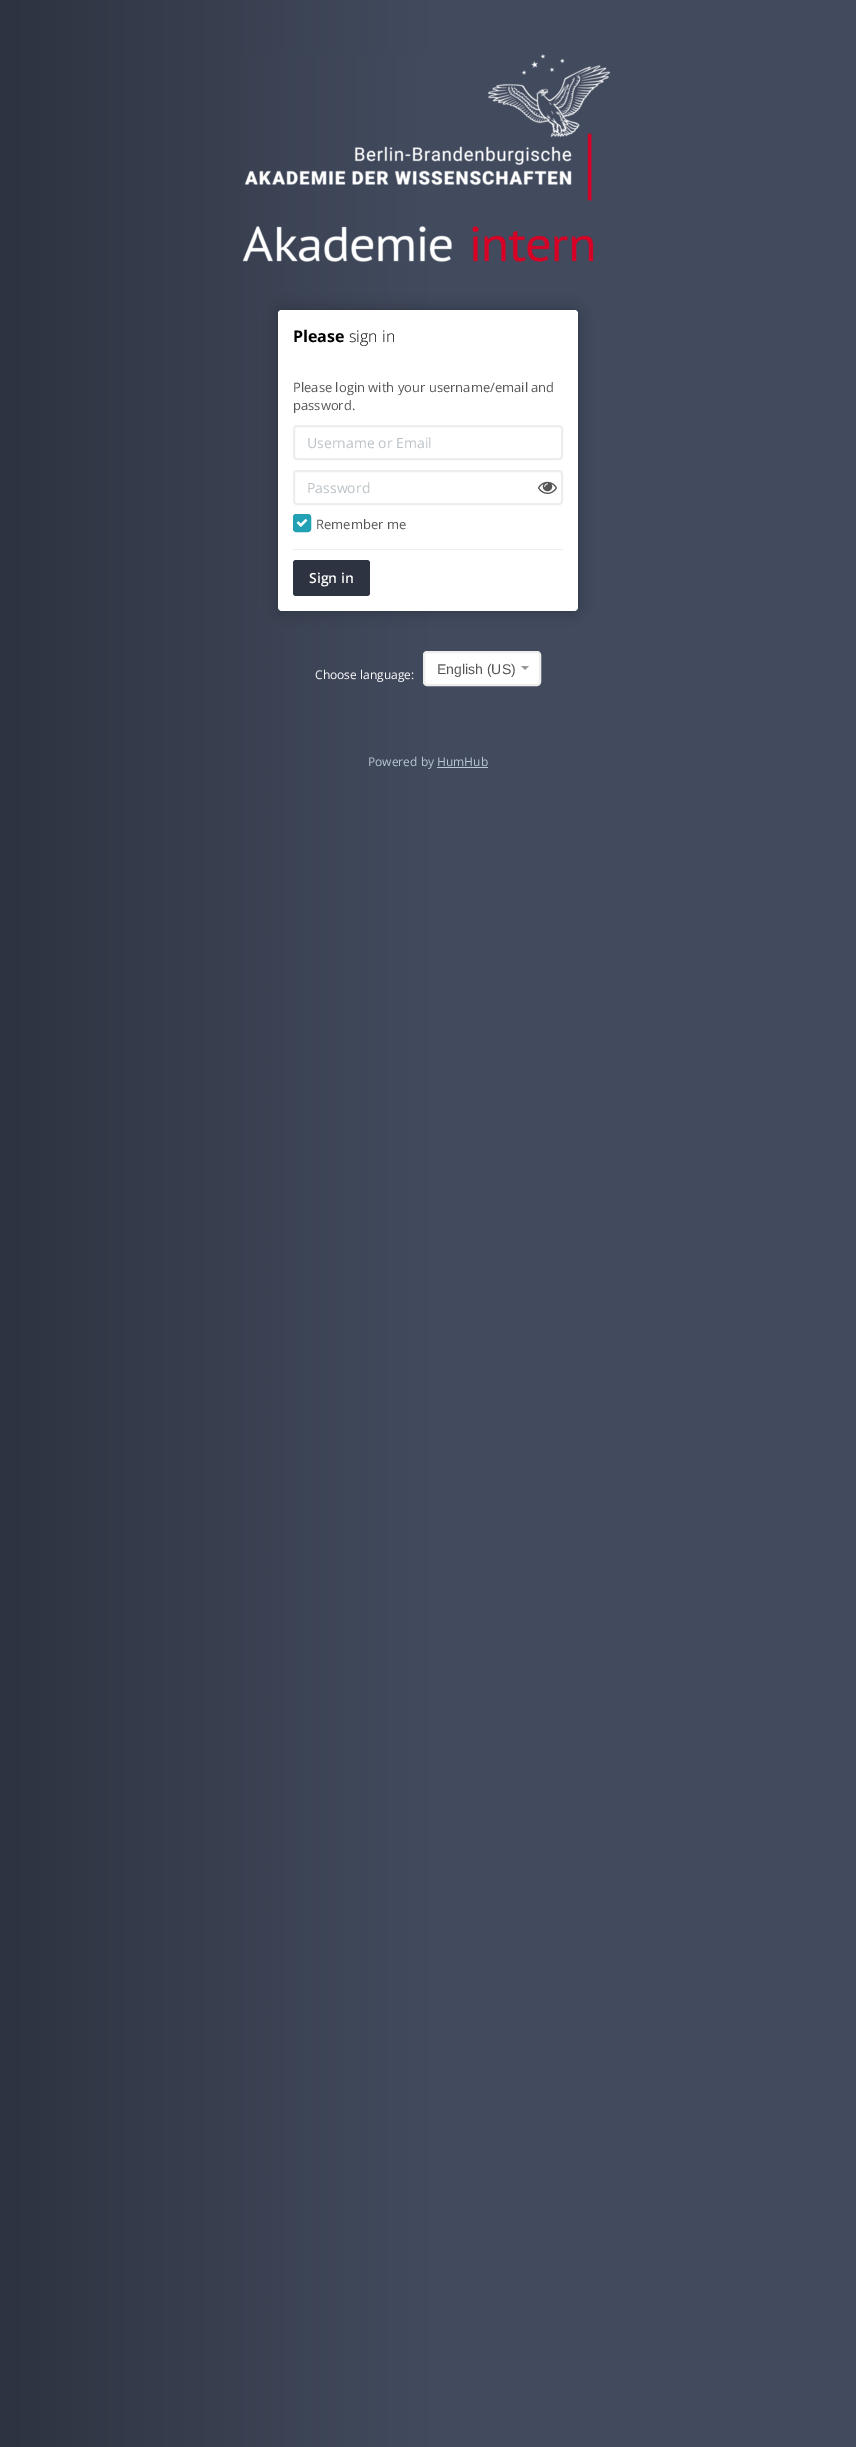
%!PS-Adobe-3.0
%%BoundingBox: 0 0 856 2447
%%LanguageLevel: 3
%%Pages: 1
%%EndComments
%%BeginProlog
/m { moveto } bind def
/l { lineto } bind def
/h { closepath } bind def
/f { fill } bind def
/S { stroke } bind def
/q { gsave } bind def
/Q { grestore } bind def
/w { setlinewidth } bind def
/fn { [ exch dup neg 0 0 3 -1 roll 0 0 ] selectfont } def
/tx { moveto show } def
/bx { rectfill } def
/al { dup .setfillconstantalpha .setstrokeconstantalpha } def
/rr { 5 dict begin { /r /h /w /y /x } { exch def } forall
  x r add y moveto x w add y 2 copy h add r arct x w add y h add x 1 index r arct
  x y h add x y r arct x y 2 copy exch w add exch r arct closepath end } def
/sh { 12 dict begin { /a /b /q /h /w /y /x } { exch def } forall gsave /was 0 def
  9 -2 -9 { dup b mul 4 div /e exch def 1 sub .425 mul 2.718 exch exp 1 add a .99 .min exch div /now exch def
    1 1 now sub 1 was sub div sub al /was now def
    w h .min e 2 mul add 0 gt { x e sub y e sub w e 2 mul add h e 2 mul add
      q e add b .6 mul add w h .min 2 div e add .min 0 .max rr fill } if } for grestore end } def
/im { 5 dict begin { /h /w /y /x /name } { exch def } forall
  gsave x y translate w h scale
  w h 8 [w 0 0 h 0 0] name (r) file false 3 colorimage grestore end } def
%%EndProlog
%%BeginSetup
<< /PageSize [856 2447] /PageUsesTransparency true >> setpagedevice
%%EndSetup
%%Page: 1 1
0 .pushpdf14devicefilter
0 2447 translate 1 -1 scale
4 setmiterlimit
1 setgray
0 0 856 2447 bx
q 0 0 m 856 0 l 856 2447 l 0 2447 l h clip newpath
<< /ShadingType 2 /ColorSpace /DeviceRGB /Coords [0 393 856 393] /Extend [true true] /Function << /FunctionType 3 /Domain [0 1] /Functions [<< /FunctionType 2 /Domain [0 1] /C0 [0.176 0.2 0.251] /C1 [0.259 0.294 0.369] /N 1 >> << /FunctionType 2 /Domain [0 1] /C0 [0.259 0.294 0.369] /C1 [0.259 0.294 0.369] /N 1 >>] /Bounds [0.5] /Encode [0 1 0 1] >> >> shfill Q
(image0.raw) 242 54 369 208 im
0.176 0.2 0.251 setrgbcolor
278 310 300 301 4 7.5 1 sh
1 setgray
278 310 300 301 4 rr f
278 310 300 53 4 rr f
/OpenSans-Bold 16 fn
0 setgray
(Please) 293 342 tx
/OpenSans-Light 16 fn
(sign in) 349 342 tx
/OpenSans-Regular 13 fn
0.333 setgray
(Please login with your username/email and) 293 392 tx
(password.) 293 410 tx
0.929 setgray
2 w
294 426 268 33 3 rr S
/OpenSans-Regular 14 fn
0.729 0.761 0.78 setrgbcolor
(Username or Email) 307 448 tx
0.929 setgray
294 471 268 33 3 rr S
0.729 0.761 0.78 setrgbcolor
(Password) 307 493 tx
(image1.raw) 538 481 19 13 im
0.129 0.631 0.702 setrgbcolor
294 515 16 16 2 rr q f Q
S
(image2.raw) 296 519 12 8 im
/OpenSans-Regular 13 fn
0.333 setgray
(Remember me) 316 529 tx
0.933 setgray
293 549 270 1 bx
0.176 0.2 0.251 setrgbcolor
293 560 77 36 3 rr f
/OpenSans-SemiBold 14 fn
1 setgray
(Sign in) 309 583 tx
/OpenSans-Regular 12 fn
(Choose language:) 315 679 tx
424 652 116 33 3 rr q f Q
0.929 setgray
S
/LiberationSans-Regular 14 fn
0.333 setgray
(English \(US\)) 437 674 tx
0.6 setgray
521 666 m 529 666 l 525 670 l h f
/OpenSans-Regular 12 fn
0.722 0.78 0.827 setrgbcolor
(Powered by HumHub) 368 766 tx
437 767 51 1 bx
.poppdf14devicefilter showpage
%%EOF
